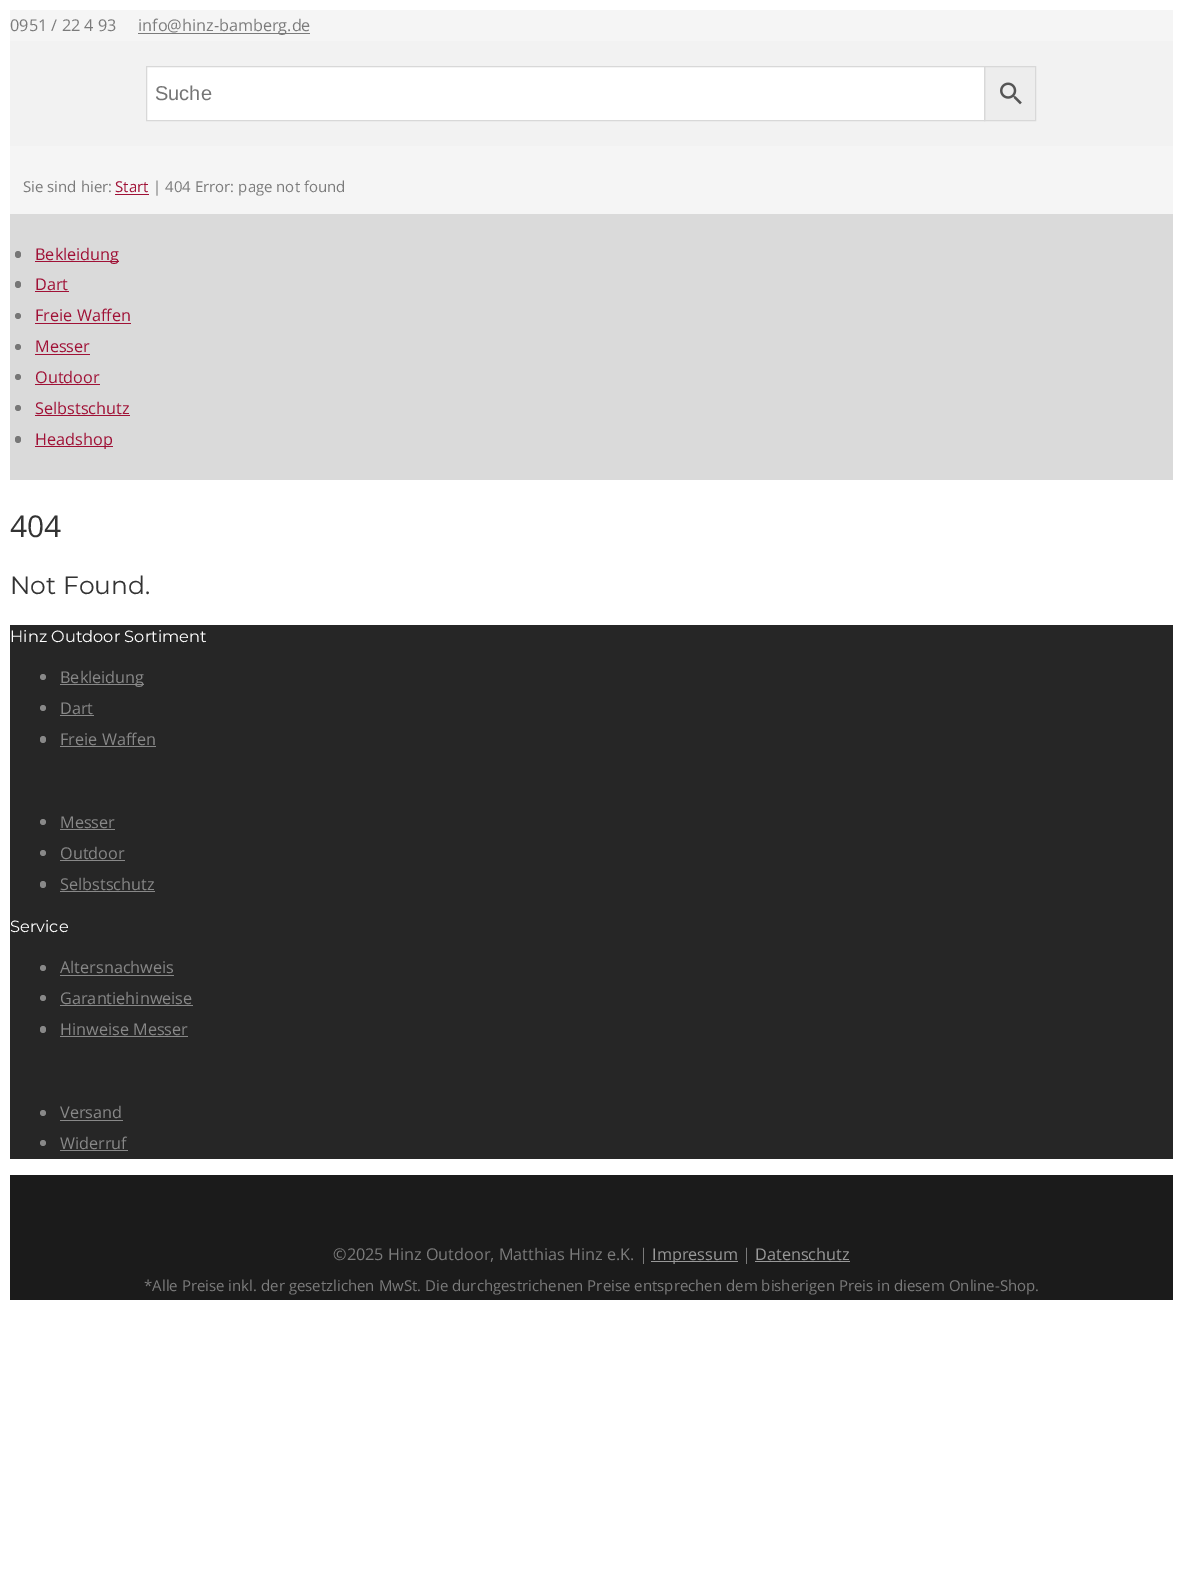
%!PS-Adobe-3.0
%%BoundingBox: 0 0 1182 1593
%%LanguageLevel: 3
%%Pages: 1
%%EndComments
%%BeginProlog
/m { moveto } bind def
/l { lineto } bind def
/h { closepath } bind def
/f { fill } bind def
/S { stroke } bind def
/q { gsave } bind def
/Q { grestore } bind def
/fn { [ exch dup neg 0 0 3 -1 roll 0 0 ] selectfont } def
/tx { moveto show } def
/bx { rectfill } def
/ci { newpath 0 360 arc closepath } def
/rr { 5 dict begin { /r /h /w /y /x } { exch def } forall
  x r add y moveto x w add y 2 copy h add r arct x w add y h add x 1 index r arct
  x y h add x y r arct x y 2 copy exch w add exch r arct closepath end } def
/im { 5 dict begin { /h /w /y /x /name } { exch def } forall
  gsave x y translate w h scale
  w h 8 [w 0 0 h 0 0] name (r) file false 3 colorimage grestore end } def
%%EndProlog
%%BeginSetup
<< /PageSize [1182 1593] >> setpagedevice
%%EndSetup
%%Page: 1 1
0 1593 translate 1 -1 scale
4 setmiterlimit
1 setgray
0 0 1182 1593 bx
0.961 setgray
10 10 1163 31 bx
/OpenSans-Regular 16.25 fn
0.482 setgray
(0951 / 22 4 93) 10 31 tx
138 33 172 1 bx
(info@hinz-bamberg.de) 138 31 tx
0.949 setgray
10 41 1163 105 bx
0.929 setgray
984.5 66.5 m 1035.5 66.5 l 1035.5 120.5 l 984.5 120.5 l h q f Q
0.847 setgray
S
1 setgray
146.5 66.5 m 984.5 66.5 l 984.5 120.5 l 146.5 120.5 l h q f Q
0.847 setgray
S
/LiberationSans-Regular 20 fn
0.459 setgray
(Suche) 155 100 tx
(image0.raw) 1000 82 22 23 im
0.961 setgray
10 146 1163 68 bx
/OpenSans-Regular 15 fn
0.482 setgray
(Sie sind hier:) 23 192 tx
0.627 0.067 0.212 setrgbcolor
(Start) 115 192 tx
115 194 34 1 bx
0.482 setgray
(| 404 Error: page not found) 153 192 tx
0.855 setgray
10 214 1163 266 bx
0.467 setgray
15 251 6 7 3 rr f
0.627 0.067 0.212 setrgbcolor
35 261 84 1 bx
/OpenSans-Regular 16.25 fn
(Bekleidung) 35 260 tx
0.467 setgray
15 281 6 7 3 rr f
0.627 0.067 0.212 setrgbcolor
(Dart) 35 290 tx
35 291 34 1 bx
0.467 setgray
18 316 3 ci f
0.627 0.067 0.212 setrgbcolor
(Freie Waffen) 35 321 tx
35 323 96 1 bx
0.467 setgray
18 347 3 ci f
0.627 0.067 0.212 setrgbcolor
(Messer) 35 352 tx
35 354 55 1 bx
0.467 setgray
18 377 3 ci f
0.627 0.067 0.212 setrgbcolor
(Outdoor) 35 383 tx
35 384 65 1 bx
0.467 setgray
18 408 3 ci f
0.627 0.067 0.212 setrgbcolor
(Selbstschutz) 35 414 tx
35 415 95 1 bx
0.467 setgray
15 436 6 7 3 rr f
0.627 0.067 0.212 setrgbcolor
35 446 78 1 bx
(Headshop) 35 445 tx
/OpenSans-Regular 30 fn
0.2 setgray
(404) 10 537 tx
/Montserrat-Regular 25 fn
(Not Found.) 10 594 tx
0.149 setgray
10 625 1163 534 bx
/Montserrat-Regular 16.25 fn
1 setgray
(Hinz Outdoor Sortiment) 10 642 tx
0.533 setgray
43 677 3 ci f
60 684 84 1 bx
/OpenSans-Regular 16.25 fn
(Bekleidung) 60 683 tx
43 708 3 ci f
(Dart) 60 714 tx
60 715 34 1 bx
40 736 6 7 3 rr f
(Freie Waffen) 60 745 tx
60 746 96 1 bx
43 822 3 ci f
(Messer) 60 828 tx
60 829 55 1 bx
43 853 3 ci f
(Outdoor) 60 859 tx
60 860 65 1 bx
40 881 6 7 3 rr f
(Selbstschutz) 60 890 tx
60 891 95 1 bx
/Montserrat-Regular 16.25 fn
1 setgray
(Service) 10 932 tx
0.533 setgray
43 968 3 ci f
/OpenSans-Regular 16.25 fn
(Altersnachweis) 60 973 tx
60 975 114 1 bx
43 998 3 ci f
(Garantiehinweise) 60 1004 tx
60 1005 133 1 bx
40 1026 6 7 3 rr f
(Hinweise Messer) 60 1035 tx
60 1036 128 1 bx
43 1113 3 ci f
(Versand) 60 1118 tx
60 1120 63 1 bx
43 1143 3 ci f
(Widerruf) 60 1149 tx
60 1150 68 1 bx
0.106 setgray
10 1175 1163 125 bx
0.482 setgray
(©2025 Hinz Outdoor, Matthias Hinz e.K. |) 333 1260 tx
0.6 setgray
651 1261 87 1 bx
(Impressum) 652 1260 tx
0.482 setgray
(|) 742 1260 tx
0.6 setgray
(Datenschutz) 755 1260 tx
755 1261 95 1 bx
/OpenSans-Regular 15 fn
0.482 setgray
(*Alle Preise inkl. der gesetzlichen MwSt. Die durchgestrichenen Preise entsprechen dem bisherigen Preis in diesem Online-Shop.) 144 1291 tx
showpage
%%EOF
